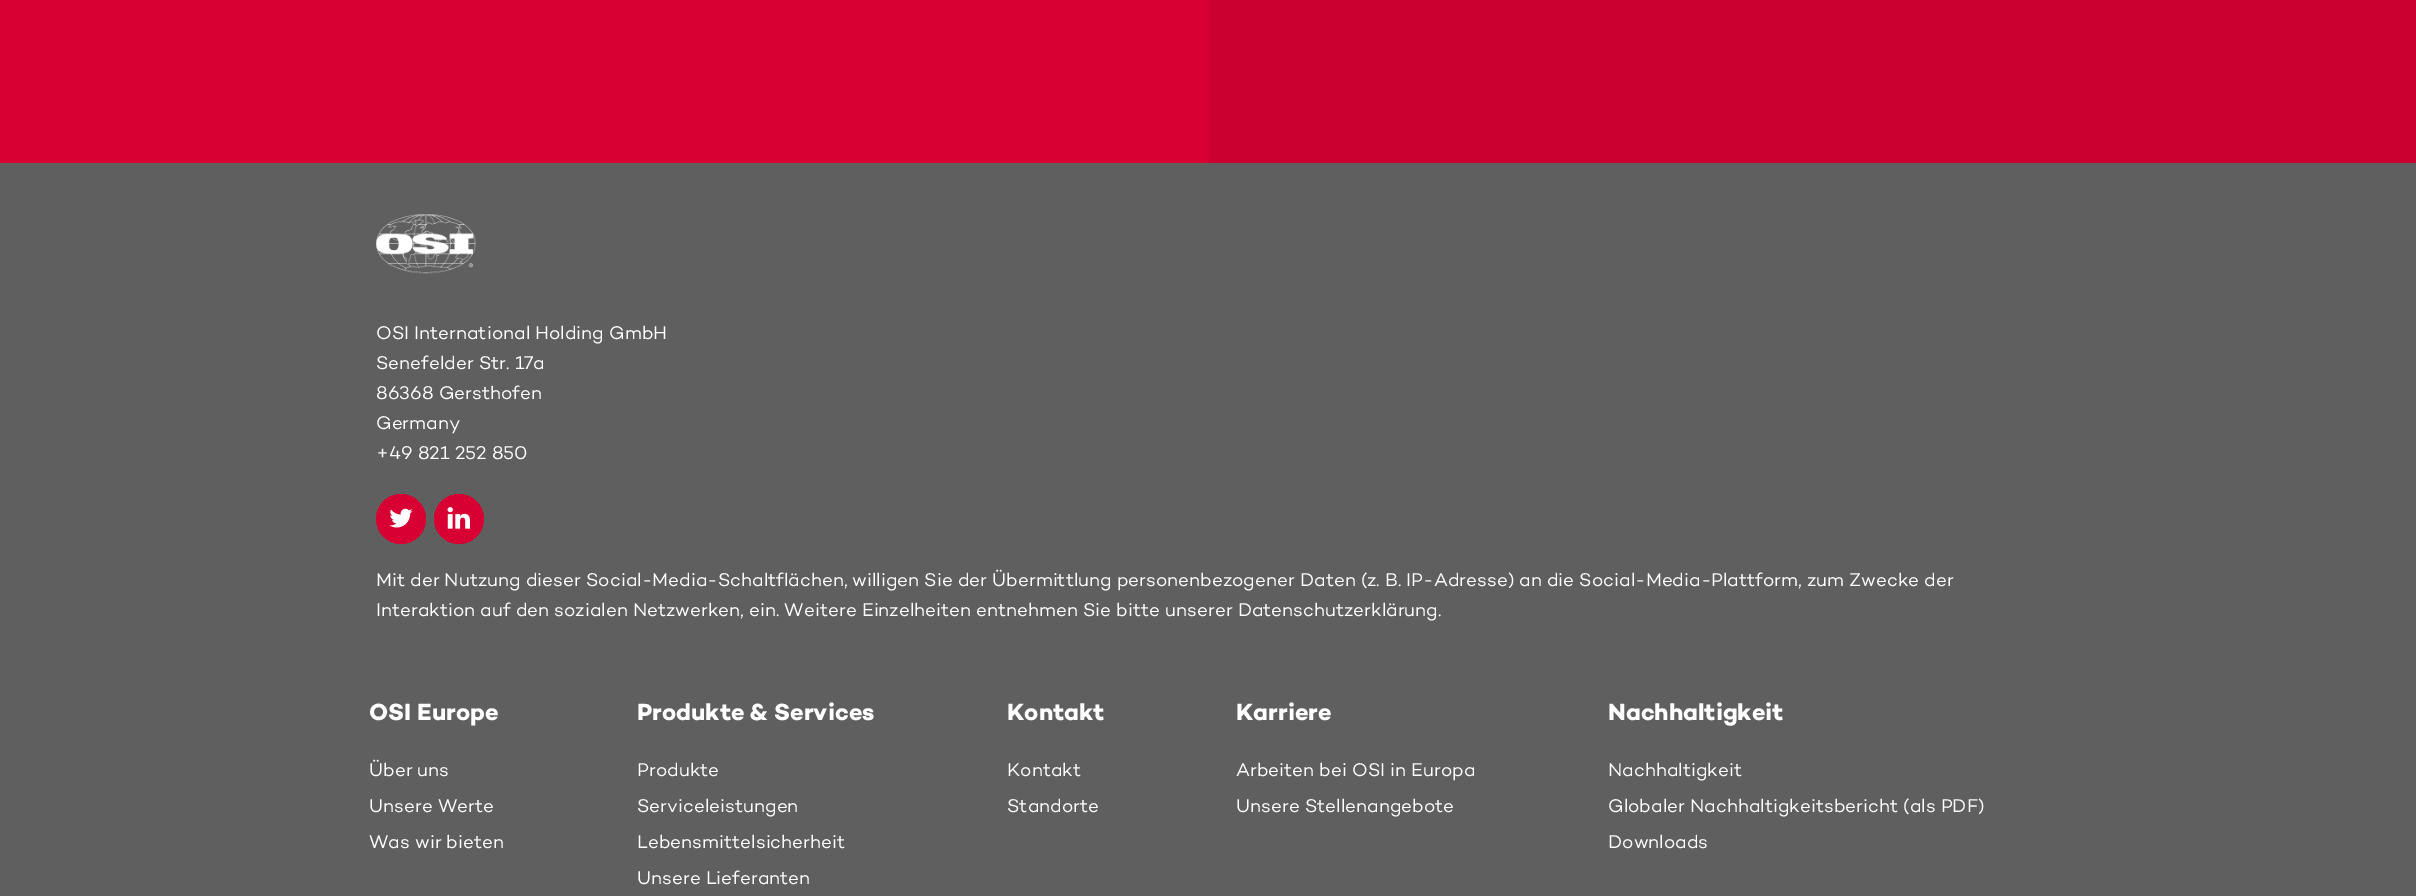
%!PS-Adobe-3.0
%%BoundingBox: 0 0 2416 896
%%LanguageLevel: 3
%%Pages: 1
%%EndComments
%%BeginProlog
/f { fill } bind def
/fn { [ exch dup neg 0 0 3 -1 roll 0 0 ] selectfont } def
/tx { moveto show } def
/bx { rectfill } def
/ci { newpath 0 360 arc closepath } def
/im { 5 dict begin { /h /w /y /x /name } { exch def } forall
  gsave x y translate w h scale
  w h 8 [w 0 0 h 0 0] name (r) file false 3 colorimage grestore end } def
%%EndProlog
%%BeginSetup
<< /PageSize [2416 896] >> setpagedevice
%%EndSetup
%%Page: 1 1
0 896 translate 1 -1 scale
4 setmiterlimit
0.373 setgray
0 0 2416 896 bx
0.847 0 0.2 setrgbcolor
0 0 1209 163 bx
0.8 0 0.188 setrgbcolor
1209 0 1207 163 bx
(image0.raw) 376 214 100 60 im
/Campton-Regular 18.75 fn
1 setgray
(OSI International Holding GmbH) 376 339 tx
(Senefelder Str. 17a) 376 369 tx
(86368 Gersthofen) 376 399 tx
(Germany) 376 429 tx
(+49 821 252 850) 376 459 tx
0.847 0 0.2 setrgbcolor
401 519 25 ci f
(image1.raw) 389 508 24 20 im
459 519 25 ci f
(image2.raw) 447 507 23 22 im
1 setgray
(Mit der Nutzung dieser Social-Media-Schaltflächen, willigen Sie der Übermittlung personenbezogener Daten \(z. B. IP-Adresse\) an die Social-Media-Plattform, zum Zwecke der) 376 586 tx
(Interaktion auf den sozialen Netzwerken, ein. Weitere Einzelheiten entnehmen Sie bitte unserer Datenschutzerklärung.) 376 616 tx
/Campton-Bold 23.75 fn
(OSI Europe) 369 720 tx
/Campton-Regular 18.75 fn
(Über uns) 369 776 tx
(Unsere Werte) 369 812 tx
(Was wir bieten) 369 848 tx
/Campton-Bold 23.75 fn
(Produkte & Services) 637 720 tx
/Campton-Regular 18.75 fn
(Produkte) 637 776 tx
(Serviceleistungen) 637 812 tx
(Lebensmittelsicherheit) 637 848 tx
(Unsere Lieferanten) 637 884 tx
/Campton-Bold 23.75 fn
(Kontakt) 1007 720 tx
/Campton-Regular 18.75 fn
(Kontakt) 1007 776 tx
(Standorte) 1007 812 tx
/Campton-Bold 23.75 fn
(Karriere) 1236 720 tx
/Campton-Regular 18.75 fn
(Arbeiten bei OSI in Europa) 1236 776 tx
(Unsere Stellenangebote) 1236 812 tx
/Campton-Bold 23.75 fn
(Nachhaltigkeit) 1608 720 tx
/Campton-Regular 18.75 fn
(Nachhaltigkeit) 1608 776 tx
(Globaler Nachhaltigkeitsbericht \(als PDF\)) 1608 812 tx
(Downloads) 1608 848 tx
showpage
%%EOF
